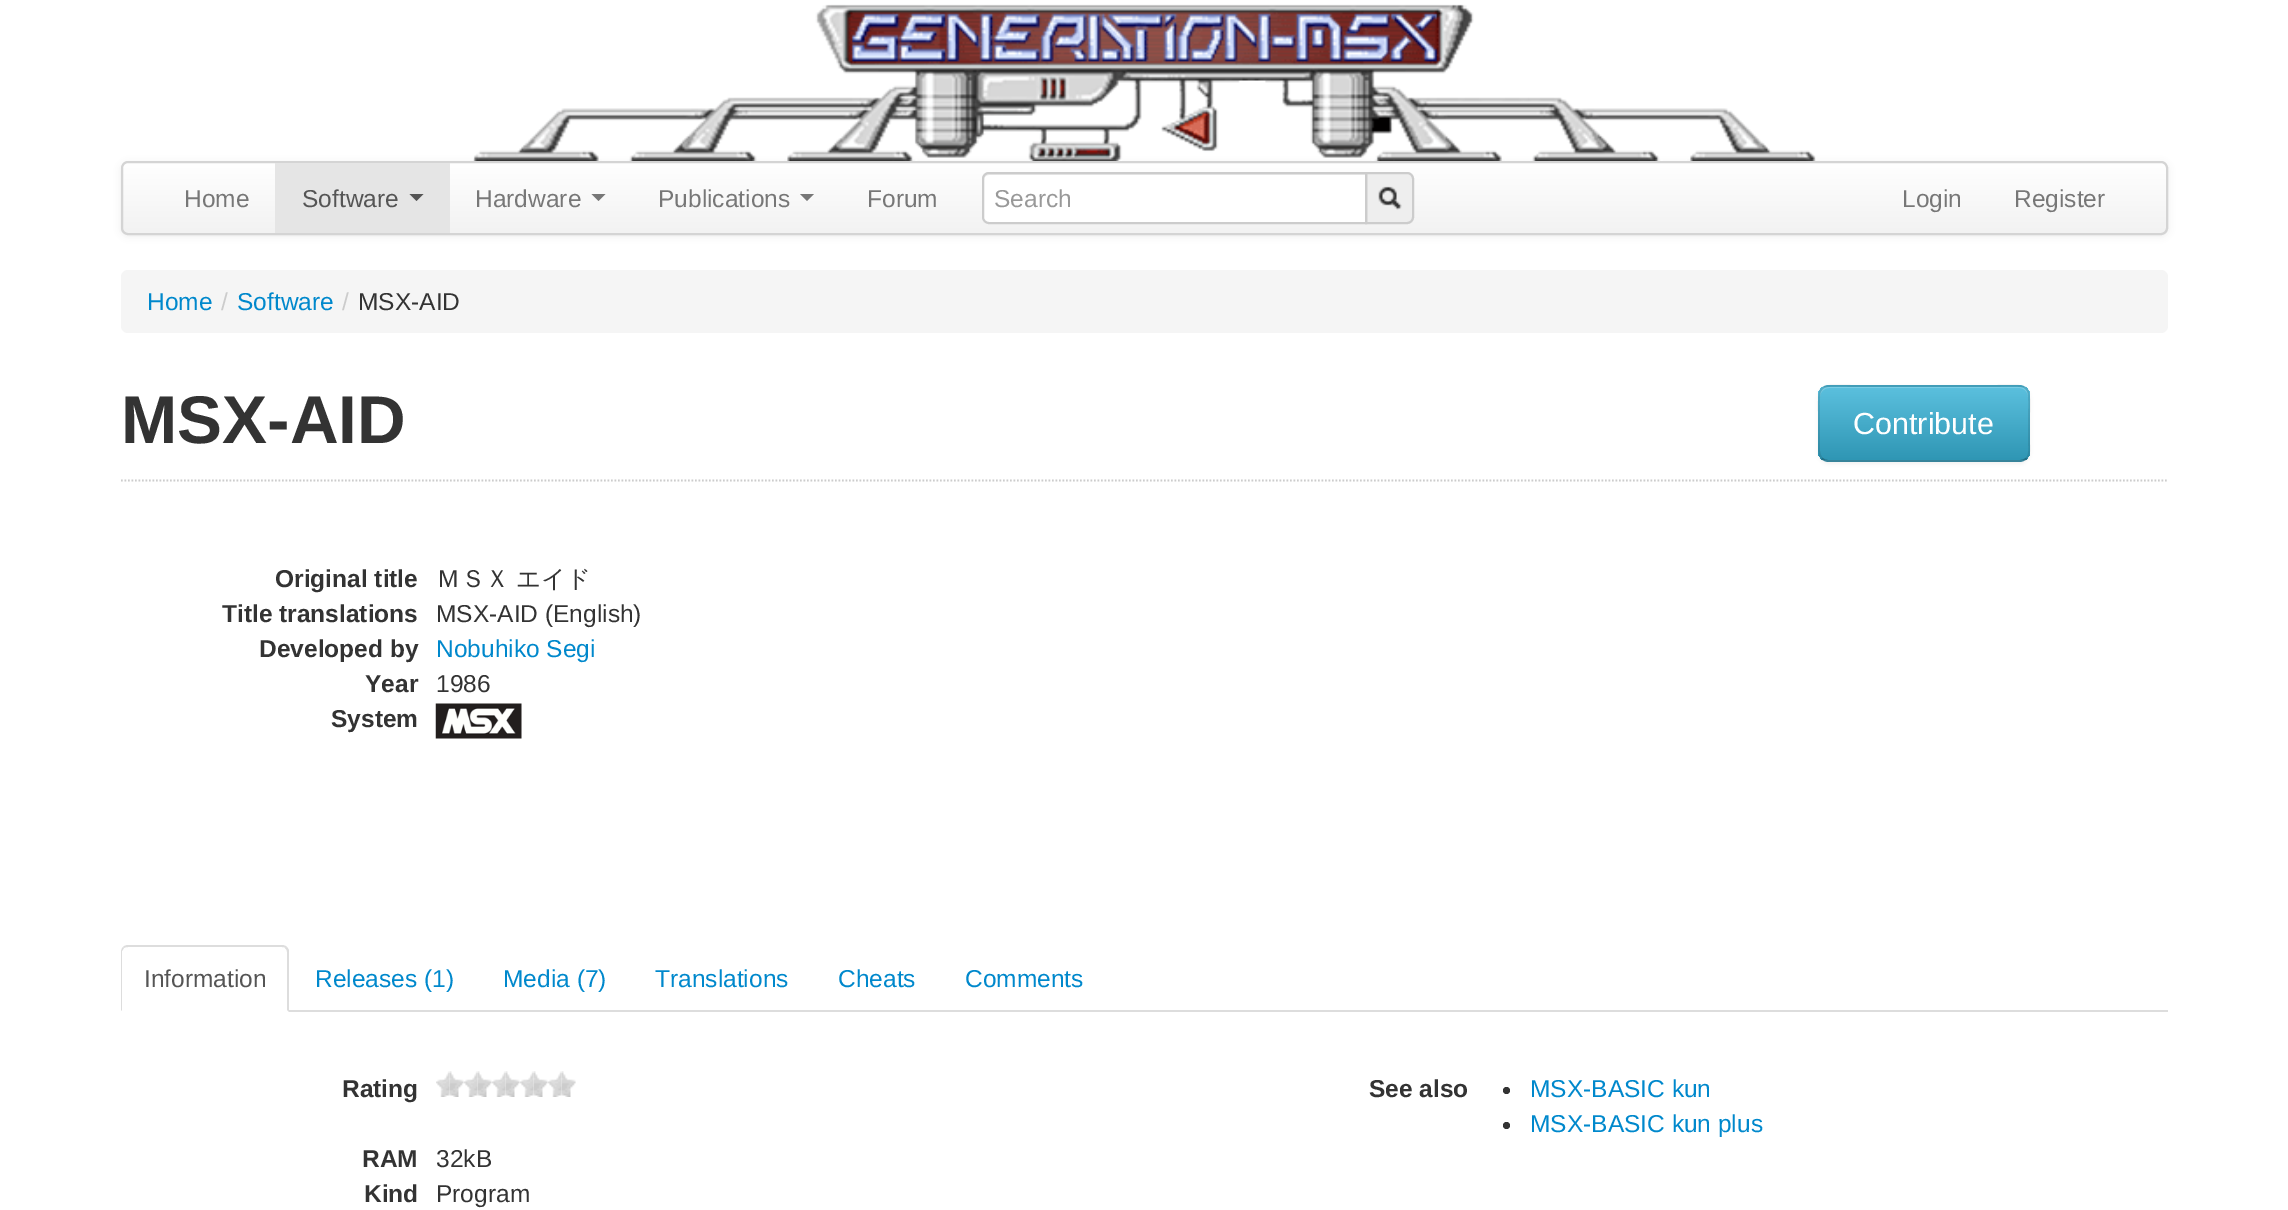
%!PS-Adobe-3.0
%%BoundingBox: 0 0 2288 1210
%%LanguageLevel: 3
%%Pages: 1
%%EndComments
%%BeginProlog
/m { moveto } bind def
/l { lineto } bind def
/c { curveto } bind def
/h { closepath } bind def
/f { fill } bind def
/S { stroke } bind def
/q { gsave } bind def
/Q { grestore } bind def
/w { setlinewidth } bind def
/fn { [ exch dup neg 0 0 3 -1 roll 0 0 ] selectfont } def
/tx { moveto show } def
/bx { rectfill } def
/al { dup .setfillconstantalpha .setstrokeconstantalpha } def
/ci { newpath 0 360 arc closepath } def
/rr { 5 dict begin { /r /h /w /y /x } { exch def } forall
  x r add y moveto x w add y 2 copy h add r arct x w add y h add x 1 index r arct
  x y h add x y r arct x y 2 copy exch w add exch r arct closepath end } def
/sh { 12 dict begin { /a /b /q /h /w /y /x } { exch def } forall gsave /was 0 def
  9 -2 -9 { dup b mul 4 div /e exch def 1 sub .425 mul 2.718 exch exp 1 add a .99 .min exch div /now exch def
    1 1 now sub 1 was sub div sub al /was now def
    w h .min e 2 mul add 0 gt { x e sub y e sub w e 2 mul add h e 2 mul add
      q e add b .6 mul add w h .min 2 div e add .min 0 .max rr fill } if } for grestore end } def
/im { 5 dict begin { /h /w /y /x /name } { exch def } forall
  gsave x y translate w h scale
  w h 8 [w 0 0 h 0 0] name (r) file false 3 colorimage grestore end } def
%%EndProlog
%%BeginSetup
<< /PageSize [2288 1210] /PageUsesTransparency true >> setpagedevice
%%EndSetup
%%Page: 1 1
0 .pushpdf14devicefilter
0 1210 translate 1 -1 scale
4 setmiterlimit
1 setgray
0 0 2288 1210 bx
0 setgray
121 163 2047 73 7 3.5 0.07 sh
(image0.raw) 473 4 1343 157 im
q
121 161 2047 74 7 rr clip newpath
q 121 163 m 2168 163 l 2168 233 l 121 233 l h clip newpath
<< /ShadingType 2 /ColorSpace /DeviceRGB /Coords [1145 163 1145 233] /Extend [true true] /Function << /FunctionType 2 /Domain [0 1] /C0 [1 1 1] /C1 [0.949 0.949 0.949] /N 1 >> >> shfill Q
Q
0.831 setgray
2 w
122 162 2045 72 6 rr S
/LiberationSans-Regular 24.5 fn
0.467 setgray
(Home) 184 207 tx
0.898 setgray
275 163 175 70 bx
0.333 setgray
(Software) 302 207 tx
409.5 194 m 423.5 194 l 416.5 201 l h f
0.467 setgray
(Hardware) 475 207 tx
591.5 194 m 605.5 194 l 598.5 201 l h f
(Publications) 658 207 tx
800 194 m 814 194 l 807 201 l h f
(Forum) 867 207 tx
0.933 setgray
1366 173 m 1407 173 l 1410.5 173 1413 175.5 1413 179 c 1413 217 l 1413 220.5 1410.5 223 1407 223 c 1366 223 l h q f Q
0.8 setgray
S
1 setgray
989 172 m 1367 172 l 1367 224 l 989 224 l 985 224 982 221 982 217 c 982 179 l 982 175 985 172 989 172 c h f
0.925 setgray
989 175 m 1365 175 l 1365 173 l 989 173 l 985 173 984 177 984 180 c 984 177 986 175 989 175 c h f
0.8 setgray
989 173 m 1366 173 l 1366 223 l 989 223 l 985.5 223 983 220.5 983 217 c 983 179 l 983 175.5 985.5 173 989 173 c h S
0.6 setgray
(Search) 994 207 tx
(image1.raw) 1378 186 24 24 im
0.467 setgray
(Login) 1902 207 tx
(Register) 2014 207 tx
0.961 setgray
121 270 2047 63 7 rr f
0 0.533 0.8 setrgbcolor
(Home) 147 310 tx
0.8 setgray
(/) 221 310 tx
0 0.533 0.8 setrgbcolor
(Software) 237 310 tx
0.8 setgray
(/) 342 310 tx
0.2 setgray
(MSX-AID) 358 310 tx
/LiberationSans-Bold 67.5 fn
(MSX-AID) 121 443 tx
0 setgray
1818 387 212 77 11 2 0.05 sh
0.286 0.686 0.804 setrgbcolor
1818 385 212 77 11 rr f
q
1818 385 212 77 11 rr clip newpath
q 1818 387 m 2030 387 l 2030 460 l 1818 460 l h clip newpath
<< /ShadingType 2 /ColorSpace /DeviceRGB /Coords [1924 387 1924 460] /Extend [true true] /Function << /FunctionType 2 /Domain [0 1] /C0 [0.357 0.753 0.871] /C1 [0.184 0.588 0.706] /N 1 >> >> shfill Q
Q
0.2 al
1 setgray
1829 388 m 2020 388 l 2024 388 2028 392 2028 397 c 2028 396 l 2028 391 2024 387 2019 387 c 1829 387 l 1824 387 1820 391 1820 396 c 1820 397 l 1820 392 1824 388 1829 388 c h f
0.25 al
0 setgray
1.8 w
2026.5 458.5 m 2024.5 460 2022 461 2019.5 461 c 1829 461 l 1826 461 1823.5 460 1822 458.5 c S
0.1 al
1822 458.5 m 1818 454 1819 447.5 1819 442 c 1819 423.5 l 1819 379.5 1814 386 1860.5 386 c 1987.5 386 l 2034.5 386 2029 379.5 2029 423.5 c 2029 442 l 2029 447.5 2030.5 454 2026.5 458.5 c S
/LiberationSans-Regular 30.5 fn
1 al
1 setgray
(Contribute) 1853 434 tx
0.8 setgray
[1.75 1.75] 0 setdash
121 480.5 m 2168 480.5 l S
/LiberationSans-Bold 24.5 fn
0.2 setgray
(Original title) 275 587 tx
/WenQuanYiZenHei-Medium 24.5 fn
436 587 m -1 0 32 (ＭＳＸ エイド) widthshow
/LiberationSans-Bold 24.5 fn
(Title translations) 222 622 tx
/LiberationSans-Regular 24.5 fn
(MSX-AID \(English\)) 436 622 tx
/LiberationSans-Bold 24.5 fn
(Developed by) 259 657 tx
/LiberationSans-Regular 24.5 fn
0 0.533 0.8 setrgbcolor
(Nobuhiko Segi) 436 657 tx
/LiberationSans-Bold 24.5 fn
0.2 setgray
(Year) 365 692 tx
/LiberationSans-Regular 24.5 fn
(1986) 436 692 tx
/LiberationSans-Bold 24.5 fn
(System) 331 727 tx
(image2.raw) 435 703 87 36 im
0.867 setgray
289 1010 1879 2 bx
128 945 m 126 945 124 946 123 947 c 124 948 l 125 947 127 947 128 947 c 282 947 l 283 947 285 947 285 948 c 287 947 l 286 946 284 945 282 945 c h f
287 947 m 289 950 l 289 1012 l 287 1010 l 287 952 l 287 950 286 949 285 948 c h f
123 947 m 122 948 121 950 121 952 c 121 1011 l 122 1010 l 122 951 l 124 948 l h f
/LiberationSans-Regular 24.5 fn
0.333 setgray
(Information) 144 987 tx
0 0.533 0.8 setrgbcolor
(Releases \(1\)) 315 987 tx
(Media \(7\)) 503 987 tx
(Translations) 655 987 tx
(Cheats) 838 987 tx
(Comments) 965 987 tx
/LiberationSans-Bold 24.5 fn
0.2 setgray
(Rating) 342 1097 tx
(image3.raw) 436 1071 14 26 im
(image4.raw) 450 1071 14 26 im
(image3.raw) 464 1071 14 26 im
(image4.raw) 478 1071 14 26 im
(image3.raw) 492 1071 14 26 im
(image4.raw) 506 1071 14 26 im
(image3.raw) 520 1071 14 26 im
(image4.raw) 534 1071 14 26 im
(image3.raw) 548 1071 14 26 im
(image4.raw) 562 1071 14 26 im
(RAM) 362 1167 tx
/LiberationSans-Regular 24.5 fn
(32kB) 436 1167 tx
/LiberationSans-Bold 24.5 fn
(Kind) 364 1202 tx
/LiberationSans-Regular 24.5 fn
(Program) 436 1202 tx
/LiberationSans-Bold 24.5 fn
(See also) 1369 1097 tx
1506.5 1090.5 3.5 ci f
/LiberationSans-Regular 24.5 fn
0 0.533 0.8 setrgbcolor
(MSX-BASIC kun) 1530 1097 tx
0.2 setgray
1506.5 1125.5 3.5 ci f
0 0.533 0.8 setrgbcolor
(MSX-BASIC kun plus) 1530 1132 tx
.poppdf14devicefilter showpage
%%EOF
